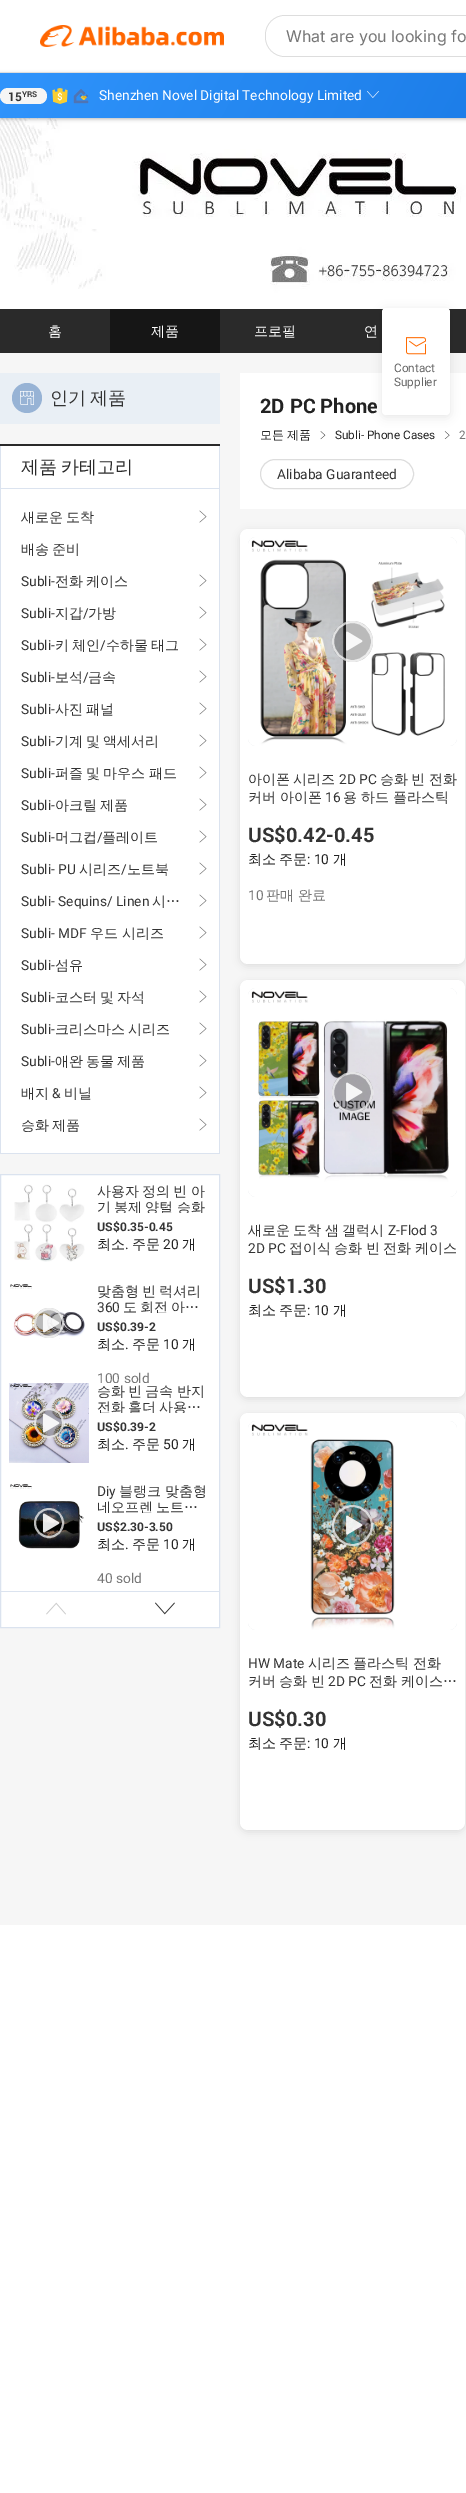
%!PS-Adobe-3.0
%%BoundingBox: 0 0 466 2493
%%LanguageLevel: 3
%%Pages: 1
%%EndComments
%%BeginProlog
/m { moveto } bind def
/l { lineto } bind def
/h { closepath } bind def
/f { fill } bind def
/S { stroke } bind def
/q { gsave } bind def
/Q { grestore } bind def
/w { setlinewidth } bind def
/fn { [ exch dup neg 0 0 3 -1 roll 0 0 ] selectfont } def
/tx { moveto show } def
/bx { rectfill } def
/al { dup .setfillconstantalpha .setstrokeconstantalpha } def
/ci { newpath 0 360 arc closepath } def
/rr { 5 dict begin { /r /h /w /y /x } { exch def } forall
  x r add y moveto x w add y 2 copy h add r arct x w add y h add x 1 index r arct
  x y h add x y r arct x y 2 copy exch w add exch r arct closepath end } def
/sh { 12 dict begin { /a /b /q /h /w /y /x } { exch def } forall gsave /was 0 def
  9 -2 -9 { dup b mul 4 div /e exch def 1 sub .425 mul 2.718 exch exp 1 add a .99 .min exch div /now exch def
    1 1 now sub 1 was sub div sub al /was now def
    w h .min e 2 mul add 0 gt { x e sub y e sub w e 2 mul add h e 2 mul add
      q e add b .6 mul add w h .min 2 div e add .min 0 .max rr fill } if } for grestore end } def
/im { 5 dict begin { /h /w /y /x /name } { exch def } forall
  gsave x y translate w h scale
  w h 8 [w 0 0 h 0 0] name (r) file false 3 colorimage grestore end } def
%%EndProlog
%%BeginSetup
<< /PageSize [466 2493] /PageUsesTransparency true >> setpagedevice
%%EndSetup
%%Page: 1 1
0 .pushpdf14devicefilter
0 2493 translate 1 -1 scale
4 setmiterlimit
1 setgray
0 0 466 2493 bx
(image1.raw) 0 118 466 191 im
0 setgray
0 74 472 45 0 2 0.28 sh
0.867 setgray
0 72 466 1 bx
(image0.raw) 40 25 184 22 im
265 15 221 42 20 rr f
1 setgray
266 16 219 40 19 rr f
/Inter-Regular 16 fn
0.463 setgray
(What are you looking fo) 286 42 tx
0.965 setgray
0 353 466 1572 bx
q 0 73 m 466 73 l 466 118 l 0 118 l h clip newpath
<< /ShadingType 2 /ColorSpace /DeviceRGB /Coords [123 -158 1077 349] /Extend [true true] /Function << /FunctionType 2 /Domain [0 1] /C0 [0.188 0.58 0.988] /C1 [0 0.361 0.8] /N 1 >> >> shfill Q
0.961 setgray
0 88 47 16 8 rr f
/Roboto-Bold 12 fn
0.2 setgray
(15) 8 101 tx
/Roboto-Bold 8 fn
(YRS) 22 97 tx
(image2.raw) 52 88 16 16 im
(image3.raw) 73 89 16 15 im
/Roboto-Regular 14 fn
1 setgray
(Shenzhen Novel Digital Technology Limited) 99 100 tx
(image4.raw) 367 91 12 7 im
0.165 setgray
0 309 466 44 bx
/WenQuanYiZenHei-Medium 14 fn
1 setgray
(홈) 48 336 tx
0.086 setgray
110 309 110 44 bx
1 setgray
(제품) 151 336 tx
(프로필) 254 336 tx
(연) 364 336 tx
0.914 0.937 0.961 setrgbcolor
0 373 220 51 bx
0.592 0.702 0.835 setrgbcolor
27 398 15 ci f
(image5.raw) 20 391 14 14 im
/WenQuanYiZenHei-Medium 18 fn
0.2 setgray
50 404 m -1 0 32 (인기 제품) widthshow
1 setgray
1 446 218 707 bx
0.165 setgray
0 444 220 2 bx
0.859 0.89 0.937 setrgbcolor
219 446 1 708 bx
0 1153 220 1 bx
0 446 1 708 bx
1 488 218 1 bx
0.165 setgray
21 473 m -1 0 32 (제품 카테고리) widthshow
/WenQuanYiZenHei-Medium 14 fn
0.2 setgray
21 522 m -1 0 32 (새로운 도착) widthshow
(image6.raw) 199 510 8 13 im
21 554 m -1 0 32 (배송 준비) widthshow
/Roboto-Regular 14 fn
(Subli-) 21 586 tx
/WenQuanYiZenHei-Medium 14 fn
55 586 m -1 0 32 (전화 케이스) widthshow
(image6.raw) 199 574 8 13 im
/Roboto-Regular 14 fn
(Subli-) 21 618 tx
/WenQuanYiZenHei-Medium 14 fn
(지갑) 55 618 tx
/Roboto-Regular 14 fn
(/) 83 618 tx
/WenQuanYiZenHei-Medium 14 fn
(가방) 88 618 tx
(image6.raw) 199 606 8 13 im
/Roboto-Regular 14 fn
(Subli-) 21 650 tx
/WenQuanYiZenHei-Medium 14 fn
55 650 m -1 0 32 (키 체인) widthshow
/Roboto-Regular 14 fn
(/) 100 650 tx
/WenQuanYiZenHei-Medium 14 fn
106 650 m -1 0 32 (수하물 태그) widthshow
(image6.raw) 199 638 8 13 im
/Roboto-Regular 14 fn
(Subli-) 21 682 tx
/WenQuanYiZenHei-Medium 14 fn
(보석) 55 682 tx
/Roboto-Regular 14 fn
(/) 83 682 tx
/WenQuanYiZenHei-Medium 14 fn
(금속) 88 682 tx
(image6.raw) 199 670 8 13 im
/Roboto-Regular 14 fn
(Subli-) 21 714 tx
/WenQuanYiZenHei-Medium 14 fn
55 714 m -1 0 32 (사진 패널) widthshow
(image6.raw) 199 702 8 13 im
/Roboto-Regular 14 fn
(Subli-) 21 746 tx
/WenQuanYiZenHei-Medium 14 fn
55 746 m -1 0 32 (기계 및 액세서리) widthshow
(image6.raw) 199 734 8 13 im
/Roboto-Regular 14 fn
(Subli-) 21 778 tx
/WenQuanYiZenHei-Medium 14 fn
55 778 m -1 0 32 (퍼즐 및 마우스 패드) widthshow
(image6.raw) 199 766 8 13 im
/Roboto-Regular 14 fn
(Subli-) 21 810 tx
/WenQuanYiZenHei-Medium 14 fn
55 810 m -1 0 32 (아크릴 제품) widthshow
(image6.raw) 199 798 8 13 im
/Roboto-Regular 14 fn
(Subli-) 21 842 tx
/WenQuanYiZenHei-Medium 14 fn
(머그컵) 55 842 tx
/Roboto-Regular 14 fn
(/) 97 842 tx
/WenQuanYiZenHei-Medium 14 fn
(플레이트) 102 842 tx
(image6.raw) 199 830 8 13 im
/Roboto-Regular 14 fn
(Subli- PU) 21 874 tx
/WenQuanYiZenHei-Medium 14 fn
(시리즈) 79 874 tx
/Roboto-Regular 14 fn
(/) 121 874 tx
/WenQuanYiZenHei-Medium 14 fn
(노트북) 127 874 tx
(image6.raw) 199 862 8 13 im
/Roboto-Regular 14 fn
(Subli- Sequins/ Linen) 21 906 tx
/WenQuanYiZenHei-Medium 14 fn
(시…) 152 906 tx
(image6.raw) 199 894 8 13 im
/Roboto-Regular 14 fn
(Subli- MDF) 21 938 tx
/WenQuanYiZenHei-Medium 14 fn
(우드) 90 938 tx
(시리즈) 122 938 tx
(image6.raw) 199 926 8 13 im
/Roboto-Regular 14 fn
(Subli-) 21 970 tx
/WenQuanYiZenHei-Medium 14 fn
(섬유) 55 970 tx
(image6.raw) 199 958 8 13 im
/Roboto-Regular 14 fn
(Subli-) 21 1002 tx
/WenQuanYiZenHei-Medium 14 fn
55 1002 m -1 0 32 (코스터 및 자석) widthshow
(image6.raw) 199 990 8 13 im
/Roboto-Regular 14 fn
(Subli-) 21 1034 tx
/WenQuanYiZenHei-Medium 14 fn
55 1034 m -1 0 32 (크리스마스 시리즈) widthshow
(image6.raw) 199 1022 8 13 im
/Roboto-Regular 14 fn
(Subli-) 21 1066 tx
/WenQuanYiZenHei-Medium 14 fn
55 1066 m -1 0 32 (애완 동물 제품) widthshow
(image6.raw) 199 1054 8 13 im
(배지) 21 1098 tx
/Roboto-Regular 14 fn
(&) 52 1098 tx
/WenQuanYiZenHei-Medium 14 fn
(비닐) 64 1098 tx
(image6.raw) 199 1086 8 13 im
21 1130 m -1 0 32 (승화 제품) widthshow
(image6.raw) 199 1118 8 13 im
1 setgray
0.5 1174.5 m 219.5 1174.5 l 219.5 1627.5 l 0.5 1627.5 l h q f Q
0.859 0.89 0.937 setrgbcolor
S
(image7.raw) 14 1184 71 78 im
0.2 setgray
97 1196 m -1 0 32 (사용자 정의 빈 아) widthshow
q
97 1183 114 30 rectclip
97 1212 m -1 0 32 (기 봉제 양털 승화) widthshow
Q
/Roboto-Bold 12 fn
(US$0.35-0.45) 97 1231 tx
/WenQuanYiZenHei-Medium 14 fn
0.133 setgray
(최소) 97 1249 tx
/Roboto-Regular 14 fn
(.) 125 1249 tx
/WenQuanYiZenHei-Medium 14 fn
(주문) 132 1249 tx
/Roboto-Regular 14 fn
(20) 163 1249 tx
/WenQuanYiZenHei-Medium 14 fn
(개) 182 1249 tx
(image8.raw) 10 1284 75 55 im
0.27 al
0 setgray
49 1323 15 ci f
0.72 al
1 setgray
2 w
49 1323 14 ci S
1 al
(image9.raw) 42 1313 18 20 im
0.2 setgray
97 1296 m -1 0 32 (맞춤형 빈 럭셔리) widthshow
/Roboto-Regular 14 fn
(360) 97 1312 tx
q
97 1283 114 30 rectclip
/WenQuanYiZenHei-Medium 14 fn
123 1312 m -1 0 32 (도 회전 아…) widthshow
Q
/Roboto-Bold 12 fn
(US$0.39-2) 97 1331 tx
/WenQuanYiZenHei-Medium 14 fn
0.133 setgray
(최소) 97 1349 tx
/Roboto-Regular 14 fn
(.) 125 1349 tx
/WenQuanYiZenHei-Medium 14 fn
(주문) 132 1349 tx
/Roboto-Regular 14 fn
(10) 163 1349 tx
/WenQuanYiZenHei-Medium 14 fn
(개) 182 1349 tx
q
97 1283 114 100 rectclip
/Roboto-Regular 14 fn
0.463 setgray
(100 sold) 97 1383 tx
Q
(image10.raw) 9 1383 80 80 im
0.27 al
0 setgray
49 1423 15 ci f
0.72 al
1 setgray
49 1423 14 ci S
1 al
(image11.raw) 42 1413 18 20 im
0.2 setgray
97 1396 m -1 0 32 (승화 빈 금속 반지) widthshow
q
97 1383 114 30 rectclip
97 1412 m -1 0 32 (전화 홀더 사용…) widthshow
Q
/Roboto-Bold 12 fn
(US$0.39-2) 97 1431 tx
/WenQuanYiZenHei-Medium 14 fn
0.133 setgray
(최소) 97 1449 tx
/Roboto-Regular 14 fn
(.) 125 1449 tx
/WenQuanYiZenHei-Medium 14 fn
(주문) 132 1449 tx
/Roboto-Regular 14 fn
(50) 163 1449 tx
/WenQuanYiZenHei-Medium 14 fn
(개) 182 1449 tx
(image12.raw) 10 1484 74 65 im
0.27 al
0 setgray
49 1523 15 ci f
0.72 al
1 setgray
49 1523 14 ci S
1 al
(image13.raw) 42 1513 18 20 im
/Roboto-Regular 14 fn
0.2 setgray
(Diy) 97 1496 tx
/WenQuanYiZenHei-Medium 14 fn
(블랭크 맞춤형) 119 1496 tx
q
97 1483 114 30 rectclip
97 1512 m -1 0 32 (네오프렌 노트…) widthshow
Q
/Roboto-Bold 12 fn
(US$2.30-3.50) 97 1531 tx
/WenQuanYiZenHei-Medium 14 fn
0.133 setgray
(최소) 97 1549 tx
/Roboto-Regular 14 fn
(.) 125 1549 tx
/WenQuanYiZenHei-Medium 14 fn
(주문) 132 1549 tx
/Roboto-Regular 14 fn
(10) 163 1549 tx
/WenQuanYiZenHei-Medium 14 fn
(개) 182 1549 tx
q
97 1483 114 100 rectclip
/Roboto-Regular 14 fn
0.463 setgray
(40 sold) 97 1583 tx
Q
0.859 0.89 0.937 setrgbcolor
1 1591 218 1 bx
(image14.raw) 46 1602 20 13 im
(image15.raw) 155 1602 20 13 im
1 setgray
240 373 226 136 bx
/Roboto-Bold 20 fn
0.133 setgray
(2D PC Phone) 260 413 tx
/WenQuanYiZenHei-Medium 12 fn
260 439 m -1 0 32 (모든 제품) widthshow
(image16.raw) 320 431 6 9 im
/Roboto-Regular 12 fn
(Subli- Phone Cases) 335 439 tx
(image17.raw) 444 431 6 8 im
0.463 setgray
(2) 459 439 tx
0.867 setgray
1 w
260.5 459.5 153 29 14.5 rr S
/Roboto-Regular 14 fn
0.2 setgray
(Alibaba Guaranteed) 277 479 tx
0 setgray
240 531 225 435 8 4 0.1 sh
1 setgray
240 529 225 435 8 rr f
(image18.raw) 248 537 209 209 im
0.27 al
0 setgray
352.5 641.5 20.5 ci f
0.72 al
1 setgray
2 w
352.5 641.5 19.5 ci S
1 al
(image19.raw) 346 631 17 20 im
/WenQuanYiZenHei-Medium 14 fn
0.2 setgray
(아이폰) 248 784 tx
(시리즈) 293 784 tx
/Roboto-Regular 14 fn
(2D PC) 339 784 tx
/WenQuanYiZenHei-Medium 14 fn
(승화) 380 784 tx
(빈) 411 784 tx
(전화) 429 784 tx
(커버 아이폰) 248 802 tx
/Roboto-Regular 14 fn
(16) 325 802 tx
/WenQuanYiZenHei-Medium 14 fn
(용 하드 플라스틱) 343 802 tx
/Roboto-Bold 20 fn
(US$0.42-0.45) 248 842 tx
/WenQuanYiZenHei-Medium 14 fn
0.133 setgray
(최소) 248 864 tx
(주문) 279 864 tx
/Roboto-Regular 14 fn
(: 10) 307 864 tx
/WenQuanYiZenHei-Medium 14 fn
(개) 333 864 tx
/Roboto-Regular 14 fn
0.463 setgray
(10) 248 900 tx
/WenQuanYiZenHei-Medium 14 fn
(판매 완료) 266 900 tx
0 setgray
240 982 225 417 8 4 0.1 sh
1 setgray
240 980 225 417 8 rr f
(image20.raw) 248 988 209 209 im
0.27 al
0 setgray
352.5 1092.5 20.5 ci f
0.72 al
1 setgray
352.5 1092.5 19.5 ci S
1 al
(image21.raw) 346 1082 17 20 im
0.2 setgray
(새로운) 248 1235 tx
(도착) 293 1235 tx
(샘) 325 1235 tx
(갤럭시) 342 1235 tx
/Roboto-Regular 14 fn
(Z-Flod 3) 388 1235 tx
(2D PC) 248 1253 tx
/WenQuanYiZenHei-Medium 14 fn
(접이식) 289 1253 tx
(승화) 334 1253 tx
(빈) 366 1253 tx
(전화) 383 1253 tx
(케이스) 415 1253 tx
/Roboto-Bold 20 fn
(US$1.30) 248 1293 tx
/WenQuanYiZenHei-Medium 14 fn
0.133 setgray
(최소) 248 1315 tx
(주문) 279 1315 tx
/Roboto-Regular 14 fn
(: 10) 307 1315 tx
/WenQuanYiZenHei-Medium 14 fn
(개) 333 1315 tx
0 setgray
240 1415 225 417 8 4 0.1 sh
1 setgray
240 1413 225 417 8 rr f
(image22.raw) 248 1421 209 209 im
0.27 al
0 setgray
352.5 1525.5 20.5 ci f
0.72 al
1 setgray
352.5 1525.5 19.5 ci S
1 al
(image23.raw) 346 1515 17 20 im
/Roboto-Regular 14 fn
0.2 setgray
(HW Mate) 248 1668 tx
/WenQuanYiZenHei-Medium 14 fn
(시리즈) 308 1668 tx
(플라스틱) 353 1668 tx
(전화) 413 1668 tx
(커버) 248 1686 tx
(승화) 279 1686 tx
(빈) 311 1686 tx
/Roboto-Regular 14 fn
(2D PC) 328 1686 tx
/WenQuanYiZenHei-Medium 14 fn
(전화) 369 1686 tx
(케이스…) 401 1686 tx
/Roboto-Bold 20 fn
(US$0.30) 248 1726 tx
/WenQuanYiZenHei-Medium 14 fn
0.133 setgray
(최소) 248 1748 tx
(주문) 279 1748 tx
/Roboto-Regular 14 fn
(: 10) 307 1748 tx
/WenQuanYiZenHei-Medium 14 fn
(개) 333 1748 tx
0 setgray
382 310 68 107 4 5 0.1 sh
1 setgray
382 308 68 107 4 rr f
(image24.raw) 406 337 20 18 im
/Roboto-Regular 12 fn
0.4 setgray
(Contact) 394 372 tx
(Supplier) 394 386 tx
.poppdf14devicefilter showpage
%%EOF
